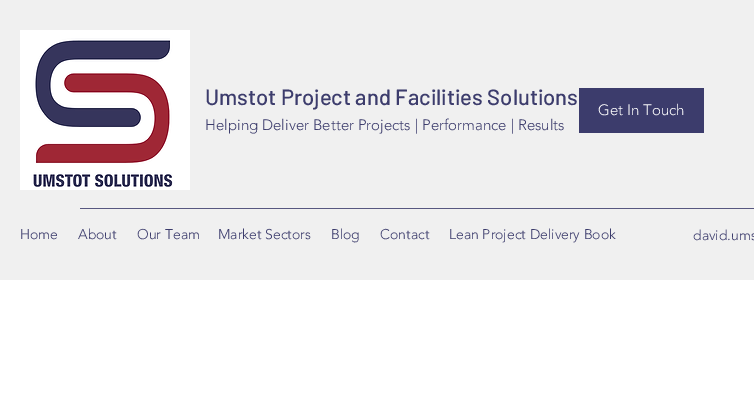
%!PS-Adobe-3.0
%%BoundingBox: 0 0 754 410
%%LanguageLevel: 3
%%Pages: 1
%%EndComments
%%BeginProlog
/fn { [ exch dup neg 0 0 3 -1 roll 0 0 ] selectfont } def
/tx { moveto show } def
/bx { rectfill } def
/im { 5 dict begin { /h /w /y /x /name } { exch def } forall
  gsave x y translate w h scale
  w h 8 [w 0 0 h 0 0] name (r) file false 3 colorimage grestore end } def
%%EndProlog
%%BeginSetup
<< /PageSize [754 410] >> setpagedevice
%%EndSetup
%%Page: 1 1
0 410 translate 1 -1 scale
4 setmiterlimit
1 setgray
0 0 754 410 bx
0.941 setgray
0 0 754 280 bx
(image0.raw) 20 30 170 160 im
/Barlow-Medium 22 fn
0.235 0.235 0.424 setrgbcolor
(Umstot Project and Facilities Solutions) 205 105 tx
/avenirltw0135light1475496-Light 15 fn
(Helping Deliver Better Projects | Performance | Results) 205 130 tx
579 88 125 45 bx
1 setgray
(Get In Touch) 598 115 tx
0.341 0.341 0.502 setrgbcolor
80 208 674 1 bx
/avenirltw0135light1475496-Light 14 fn
0.235 0.235 0.424 setrgbcolor
(Home) 20 239 tx
(About) 78 239 tx
(Our Team) 137 239 tx
(Market Sectors) 218 239 tx
(Blog) 331 239 tx
(Contact) 380 239 tx
(Lean Project Delivery Book) 449 239 tx
(david.ums) 693 240 tx
showpage
%%EOF
